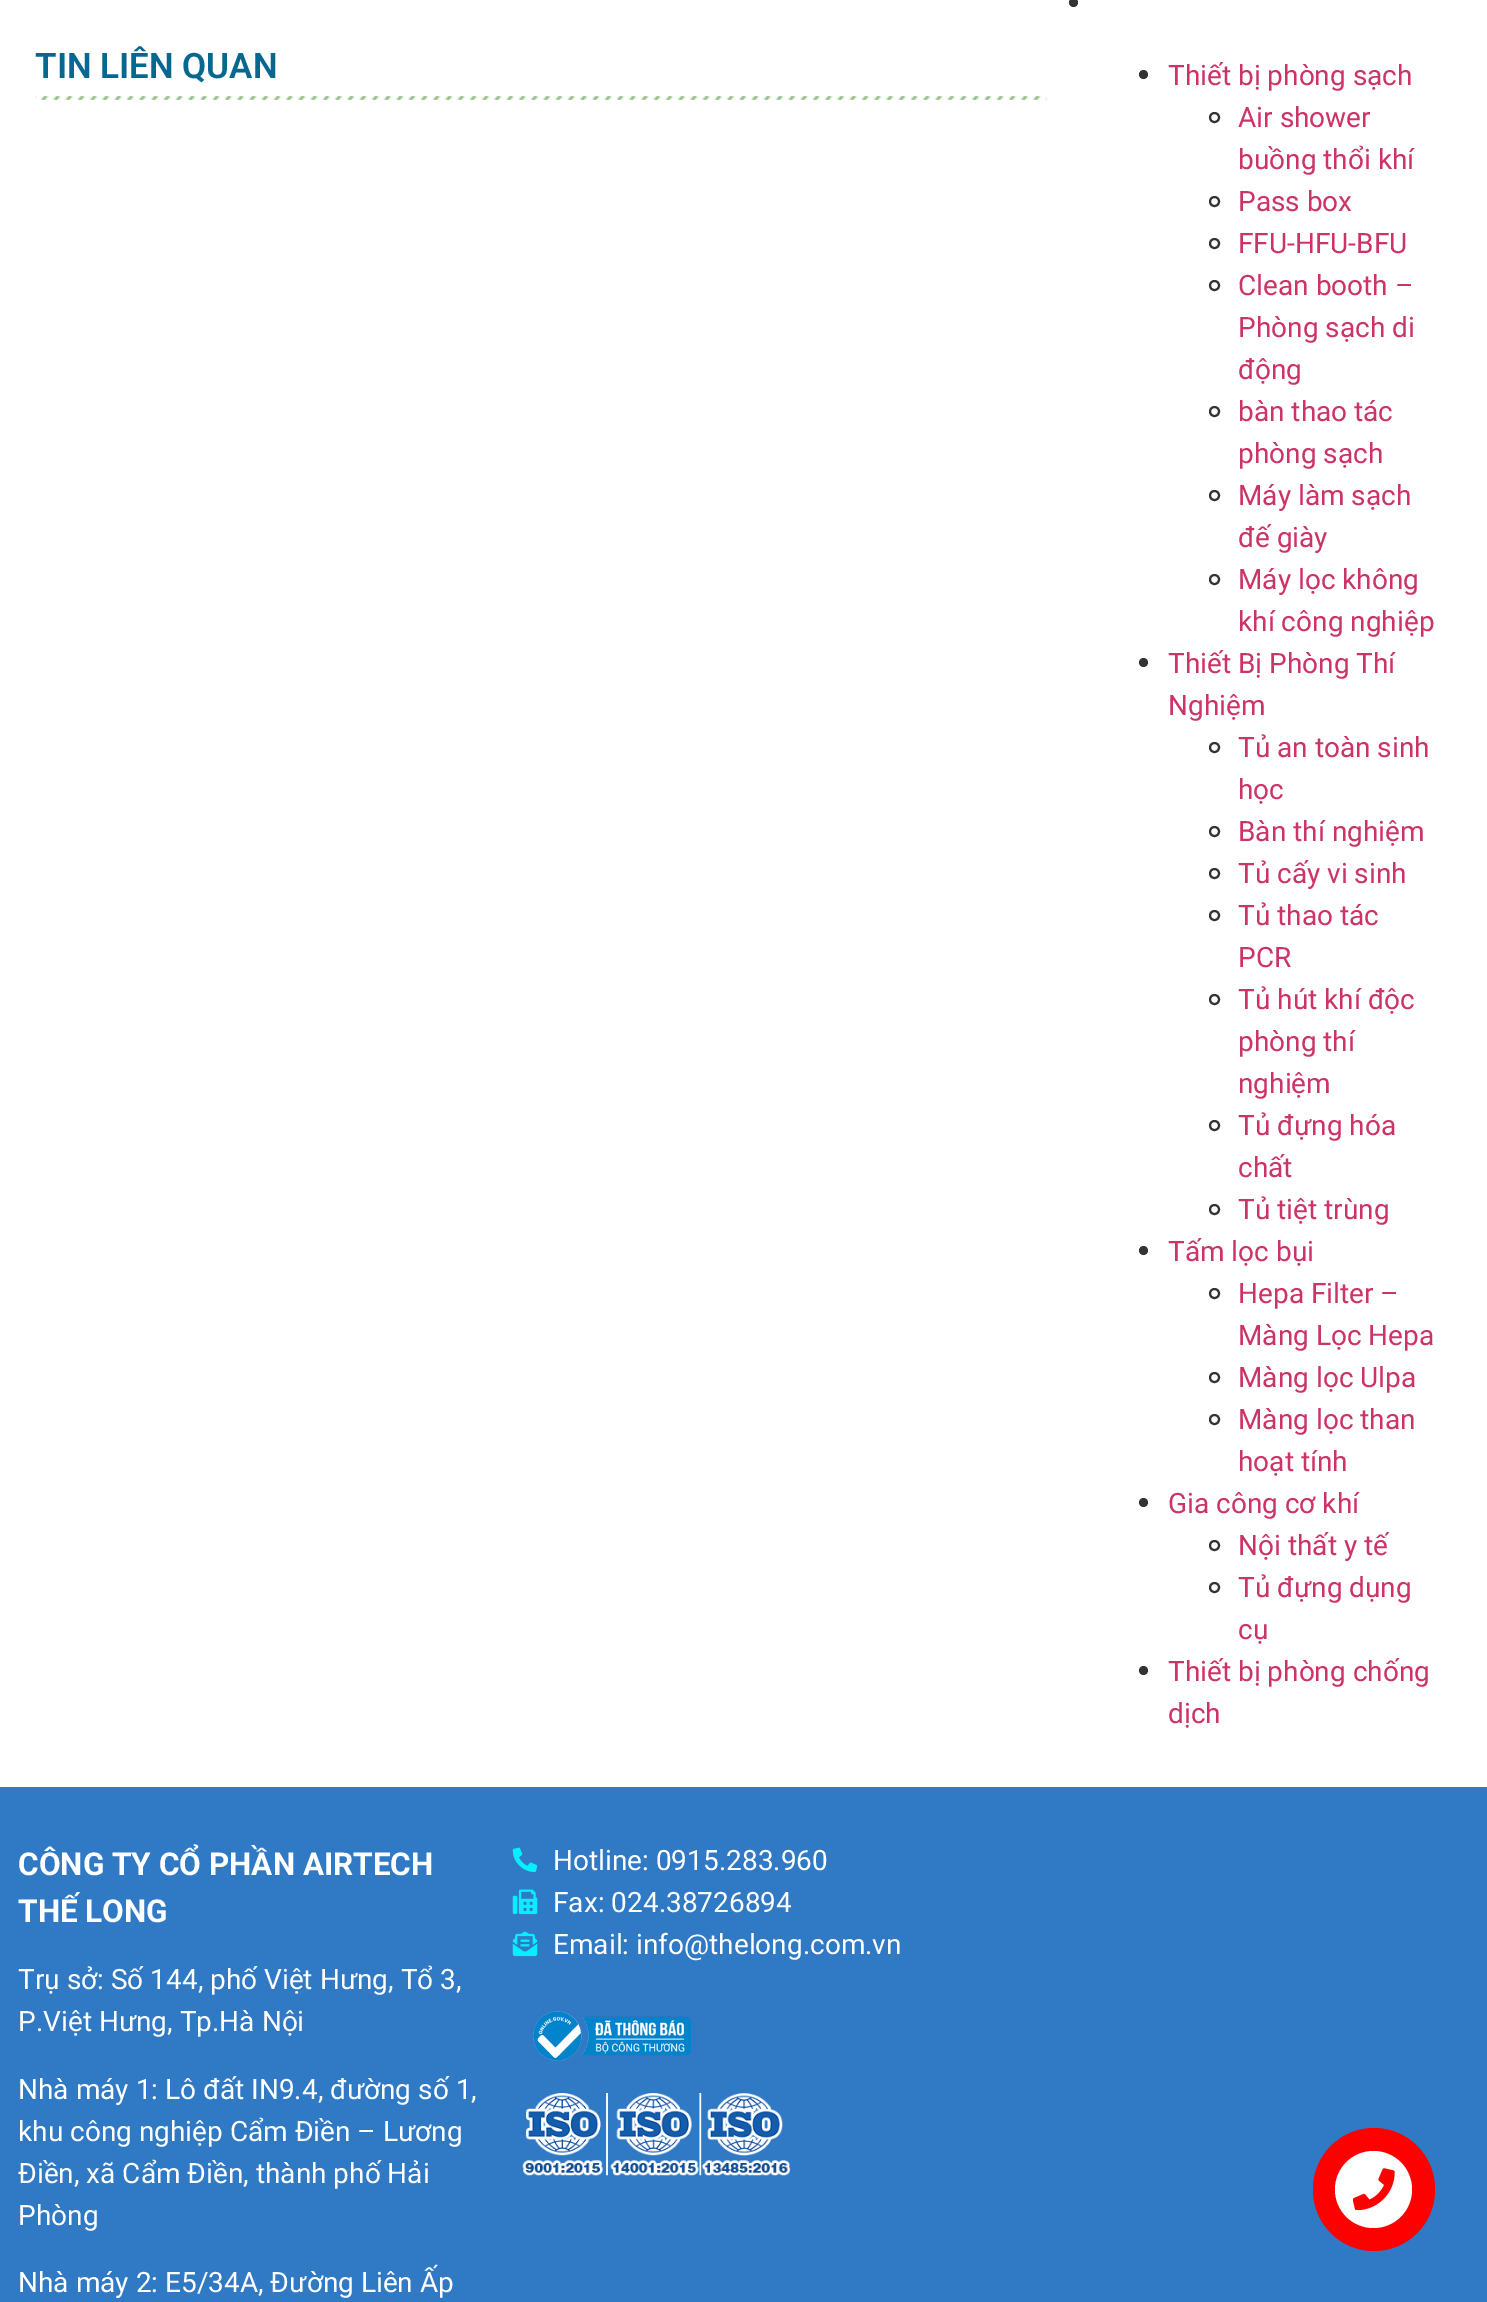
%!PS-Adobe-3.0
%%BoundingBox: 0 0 1487 2302
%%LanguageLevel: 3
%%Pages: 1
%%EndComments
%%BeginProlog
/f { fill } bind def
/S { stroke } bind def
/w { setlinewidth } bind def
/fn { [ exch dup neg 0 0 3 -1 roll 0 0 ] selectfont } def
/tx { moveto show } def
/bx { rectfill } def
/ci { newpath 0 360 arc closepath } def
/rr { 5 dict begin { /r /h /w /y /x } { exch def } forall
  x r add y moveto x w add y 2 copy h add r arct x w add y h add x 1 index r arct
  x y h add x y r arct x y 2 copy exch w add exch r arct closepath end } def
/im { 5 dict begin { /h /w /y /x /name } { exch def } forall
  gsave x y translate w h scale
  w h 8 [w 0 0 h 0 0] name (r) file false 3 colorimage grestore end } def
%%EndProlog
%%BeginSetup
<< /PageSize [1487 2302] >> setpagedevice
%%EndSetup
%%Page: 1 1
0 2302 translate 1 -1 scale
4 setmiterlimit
1 setgray
0 0 1487 2302 bx
(image0.raw) 35 96 1012 4 im
/Roboto-SemiBold 35 fn
0.024 0.404 0.569 setrgbcolor
(TIN LIÊN QUAN) 35 78 tx
0.2 setgray
1073.5 2.5 4.5 ci f
1143.5 74.5 4.5 ci f
/Roboto-Regular 28 fn
0.8 0.2 0.4 setrgbcolor
(Thiết bị phòng sạch) 1168 85 tx
0.2 setgray
2 w
1214.5 117.5 4.5 ci S
0.8 0.2 0.4 setrgbcolor
(Air shower) 1238 127 tx
(buồng thổi khí) 1238 169 tx
0.2 setgray
1214.5 201.5 4.5 ci S
0.8 0.2 0.4 setrgbcolor
(Pass box) 1238 211 tx
0.2 setgray
1214.5 243.5 4.5 ci S
0.8 0.2 0.4 setrgbcolor
(FFU-HFU-BFU) 1238 253 tx
0.2 setgray
1214.5 285.5 4.5 ci S
0.8 0.2 0.4 setrgbcolor
(Clean booth –) 1238 295 tx
(Phòng sạch di) 1238 337 tx
(động) 1238 379 tx
0.2 setgray
1214.5 411.5 4.5 ci S
0.8 0.2 0.4 setrgbcolor
(bàn thao tác) 1238 421 tx
(phòng sạch) 1238 463 tx
0.2 setgray
1214.5 495.5 4.5 ci S
0.8 0.2 0.4 setrgbcolor
(Máy làm sạch) 1238 505 tx
(đế giày) 1238 547 tx
0.2 setgray
1214.5 579.5 4.5 ci S
0.8 0.2 0.4 setrgbcolor
(Máy lọc không) 1238 589 tx
(khí công nghiệp) 1238 631 tx
0.2 setgray
1143.5 662.5 4.5 ci f
0.8 0.2 0.4 setrgbcolor
(Thiết Bị Phòng Thí) 1168 673 tx
(Nghiệm) 1168 715 tx
0.2 setgray
1214.5 747.5 4.5 ci S
0.8 0.2 0.4 setrgbcolor
(Tủ an toàn sinh) 1238 757 tx
(học) 1238 799 tx
0.2 setgray
1214.5 831.5 4.5 ci S
0.8 0.2 0.4 setrgbcolor
(Bàn thí nghiệm) 1238 841 tx
0.2 setgray
1214.5 873.5 4.5 ci S
0.8 0.2 0.4 setrgbcolor
(Tủ cấy vi sinh) 1238 883 tx
0.2 setgray
1214.5 915.5 4.5 ci S
0.8 0.2 0.4 setrgbcolor
(Tủ thao tác) 1238 925 tx
(PCR) 1238 967 tx
0.2 setgray
1214.5 999.5 4.5 ci S
0.8 0.2 0.4 setrgbcolor
(Tủ hút khí độc) 1238 1009 tx
(phòng thí) 1238 1051 tx
(nghiệm) 1238 1093 tx
0.2 setgray
1214.5 1125.5 4.5 ci S
0.8 0.2 0.4 setrgbcolor
(Tủ đựng hóa) 1238 1135 tx
(chất) 1238 1177 tx
0.2 setgray
1214.5 1209.5 4.5 ci S
0.8 0.2 0.4 setrgbcolor
(Tủ tiệt trùng) 1238 1219 tx
0.2 setgray
1143.5 1250.5 4.5 ci f
0.8 0.2 0.4 setrgbcolor
(Tấm lọc bụi) 1168 1261 tx
0.2 setgray
1214.5 1293.5 4.5 ci S
0.8 0.2 0.4 setrgbcolor
(Hepa Filter –) 1238 1303 tx
(Màng Lọc Hepa) 1238 1345 tx
0.2 setgray
1214.5 1377.5 4.5 ci S
0.8 0.2 0.4 setrgbcolor
(Màng lọc Ulpa) 1238 1387 tx
0.2 setgray
1214.5 1419.5 4.5 ci S
0.8 0.2 0.4 setrgbcolor
(Màng lọc than) 1238 1429 tx
(hoạt tính) 1238 1471 tx
0.2 setgray
1143.5 1502.5 4.5 ci f
0.8 0.2 0.4 setrgbcolor
(Gia công cơ khí) 1168 1513 tx
0.2 setgray
1214.5 1545.5 4.5 ci S
0.8 0.2 0.4 setrgbcolor
(Nội thất y tế) 1238 1555 tx
0.2 setgray
1214.5 1587.5 4.5 ci S
0.8 0.2 0.4 setrgbcolor
(Tủ đựng dụng) 1238 1597 tx
(cụ) 1238 1639 tx
0.2 setgray
1143.5 1670.5 4.5 ci f
0.8 0.2 0.4 setrgbcolor
(Thiết bị phòng chống) 1168 1681 tx
(dịch) 1168 1723 tx
0.188 0.475 0.773 setrgbcolor
0 1787 1487 515 bx
/Roboto-Bold 31.5 fn
1 setgray
(CÔNG TY CỔ PHẦN AIRTECH) 18 1875 tx
(THẾ LONG) 18 1922 tx
/Roboto-Regular 28 fn
(Trụ sở: Số 144, phố Việt Hưng, Tổ 3,) 18 1989 tx
(P.Việt Hưng, Tp.Hà Nội) 18 2031 tx
(Nhà máy 1: Lô đất IN9.4, đường số 1,) 18 2099 tx
(khu công nghiệp Cẩm Điền – Lương) 18 2141 tx
(Điền, xã Cẩm Điền, thành phố Hải) 18 2183 tx
(Phòng) 18 2225 tx
(Nhà máy 2: E5/34A, Đường Liên Ấp) 18 2292 tx
(image1.raw) 512 1847 26 26 im
(Hotline: 0915.283.960) 553 1870 tx
(image2.raw) 512 1889 26 26 im
(Fax: 024.38726894) 553 1912 tx
(image3.raw) 512 1931 26 26 im
(Email: info@thelong.com.vn) 553 1954 tx
(image4.raw) 526 2004 165 64 im
(image5.raw) 522 2093 269 83 im
1 0 0 setrgbcolor
1313 2128 122 123 61 rr f
1 setgray
1373.5 2189.5 38.5 ci f
(image6.raw) 1353 2168 42 42 im
showpage
%%EOF
